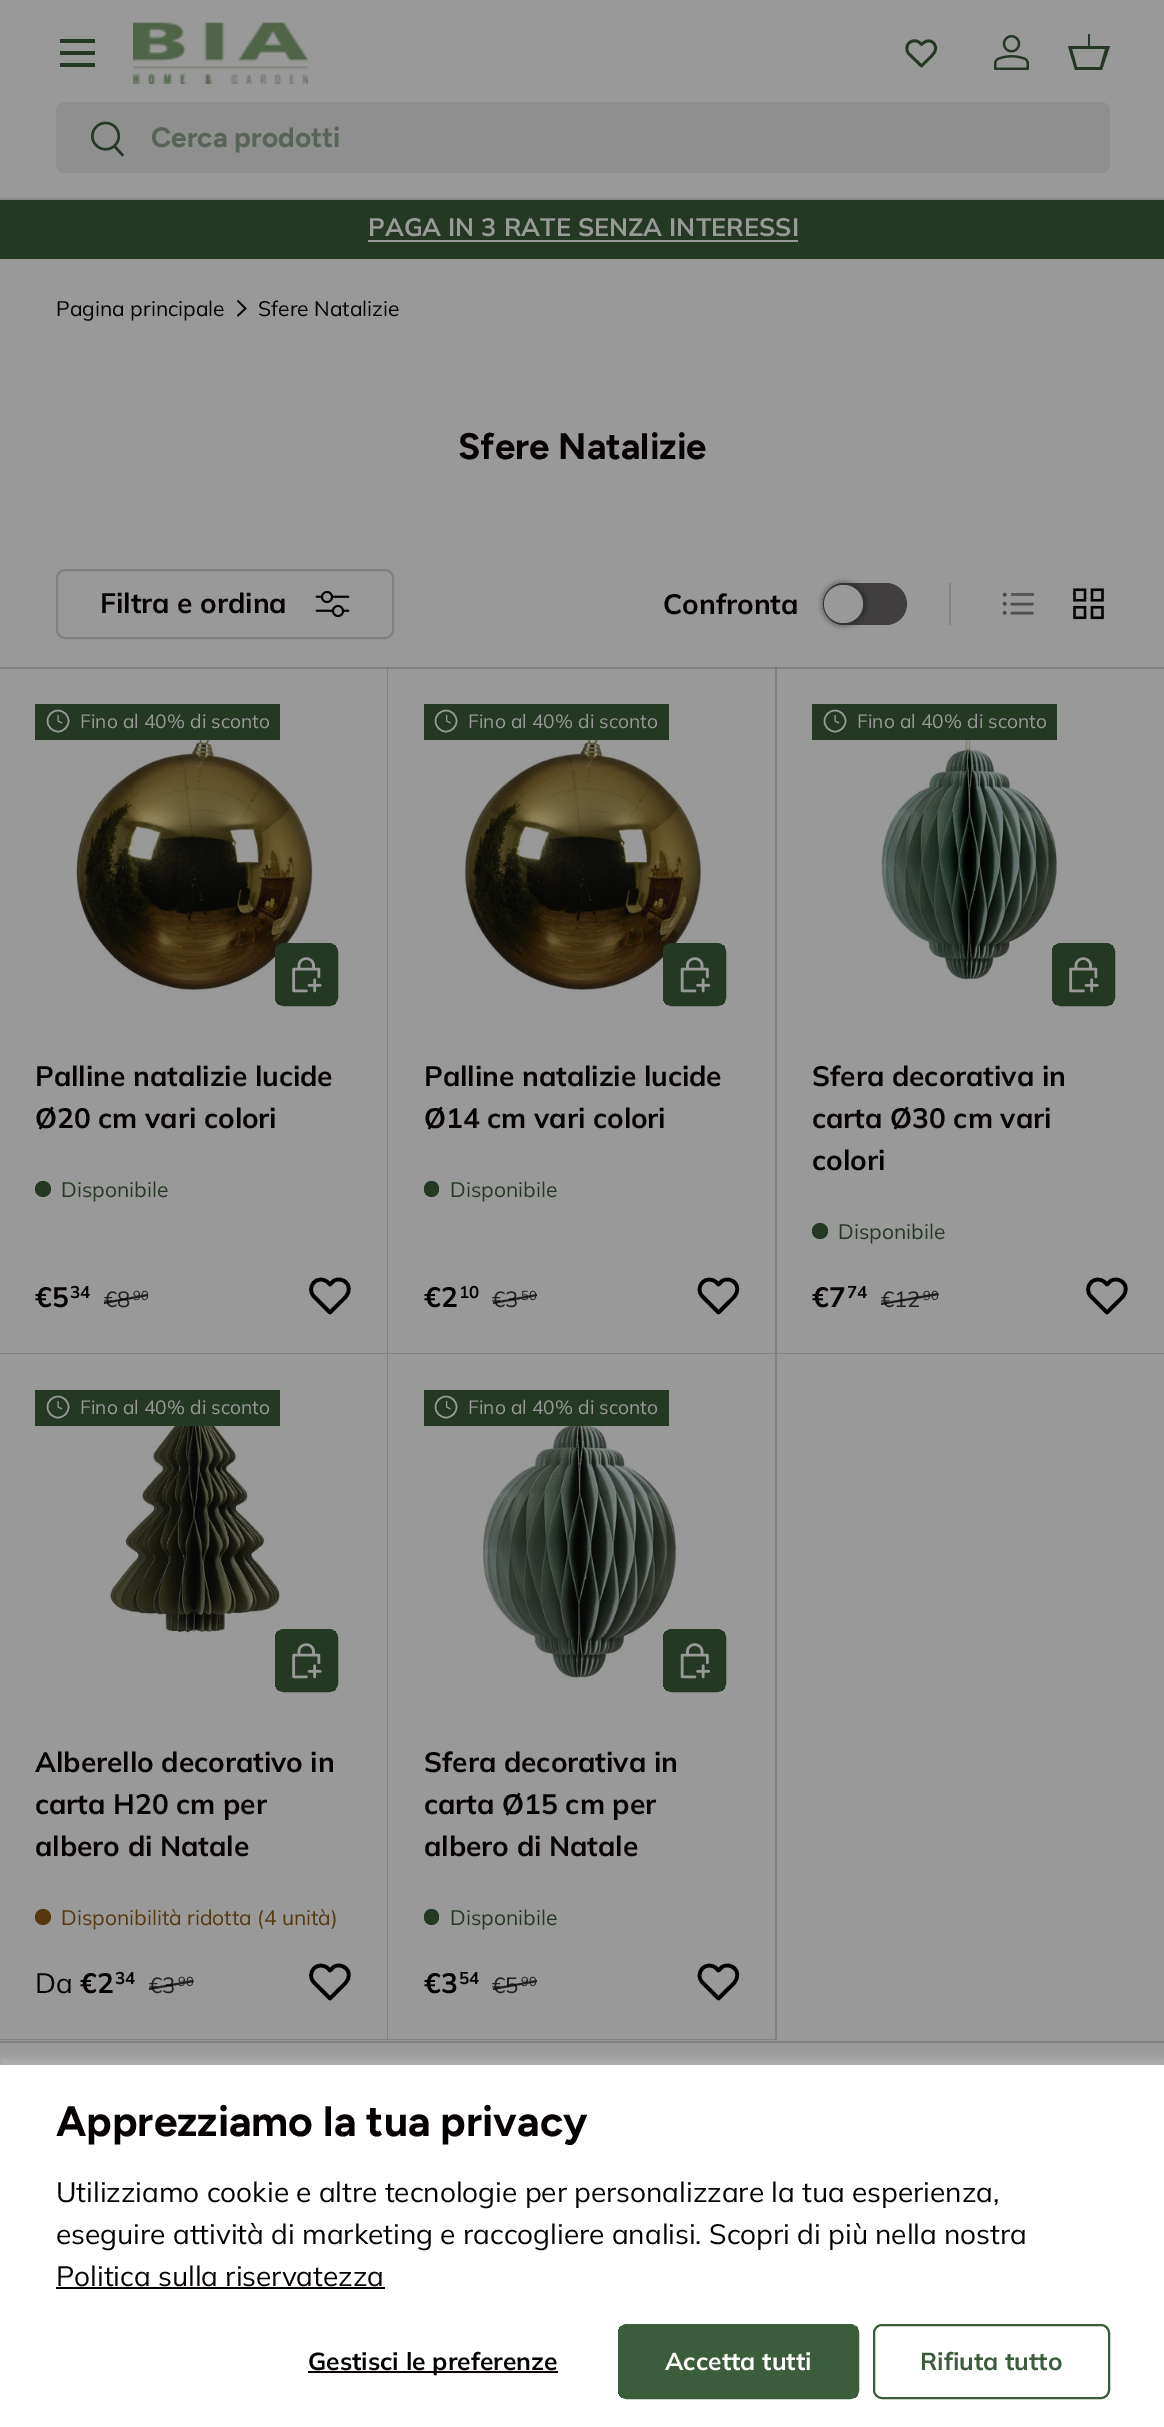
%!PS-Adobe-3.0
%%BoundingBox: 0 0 1164 2427
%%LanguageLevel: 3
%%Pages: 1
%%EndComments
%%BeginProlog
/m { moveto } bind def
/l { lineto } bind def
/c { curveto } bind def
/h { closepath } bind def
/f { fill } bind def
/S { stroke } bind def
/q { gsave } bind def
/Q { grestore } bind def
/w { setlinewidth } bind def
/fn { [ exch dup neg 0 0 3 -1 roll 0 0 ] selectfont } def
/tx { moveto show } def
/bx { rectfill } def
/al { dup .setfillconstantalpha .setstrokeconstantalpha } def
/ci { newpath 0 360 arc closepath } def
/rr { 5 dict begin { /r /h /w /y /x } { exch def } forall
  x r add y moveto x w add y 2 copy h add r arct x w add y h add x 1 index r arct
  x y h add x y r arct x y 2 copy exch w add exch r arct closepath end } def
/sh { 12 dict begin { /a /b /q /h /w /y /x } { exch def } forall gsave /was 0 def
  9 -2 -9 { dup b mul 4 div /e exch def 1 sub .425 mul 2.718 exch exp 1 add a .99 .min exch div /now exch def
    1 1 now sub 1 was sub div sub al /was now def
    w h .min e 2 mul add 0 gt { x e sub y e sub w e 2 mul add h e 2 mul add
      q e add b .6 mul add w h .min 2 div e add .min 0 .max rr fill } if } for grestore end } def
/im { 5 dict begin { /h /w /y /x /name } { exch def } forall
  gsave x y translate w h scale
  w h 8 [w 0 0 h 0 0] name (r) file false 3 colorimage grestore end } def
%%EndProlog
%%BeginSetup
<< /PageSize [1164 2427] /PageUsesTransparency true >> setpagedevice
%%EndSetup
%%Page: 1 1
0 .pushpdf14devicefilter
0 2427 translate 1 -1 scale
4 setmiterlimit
0.6 setgray
0 0 1164 2427 bx
0.533 0.545 0.533 setrgbcolor
0 198 1164 2 bx
0.141 0.22 0.141 setrgbcolor
60 39 35 4 bx
60 63 35 4 bx
60 51 35 4 bx
(image0.raw) 133 22 175 62 im
2.8 w
1 setlinejoin
933.5 43 m 929.5 39 925 41 921.5 44.5 c 920 43 l 917 40 912 40 909 43 c 906 46 906 51 909 54 c 921.5 66 l 928.5 59 l 932.5 55 939.5 49.5 933.5 43 c h S
(image1.raw) 994 35 35 35 im
1088 46 m 1088 34 l 1090 34 l 1090 46 l 1110 46 l 1102 70 l 1075 70 l 1068 46 l h 1072 49 m 1077 67 l 1100 67 l 1105 49 l h f
0.557 0.561 0.557 setrgbcolor
56 102 1054 71 9 rr f
(image2.raw) 91 121 34 36 im
/Figtree-Bold 28 fn
0.349 0.392 0.349 setrgbcolor
(Cerca prodotti) 151 147 tx
0.141 0.22 0.141 setrgbcolor
0 200 1164 59 bx
/Muli-Bold 25.25 fn
0.6 setgray
(PAGA IN 3 RATE SENZA INTERESSI) 368 236 tx
368 240 430 2 bx
/Muli-Regular 21 fn
0.02 0.008 0.004 setrgbcolor
(Pagina principale) 56 316 tx
1.6 w
0 setlinejoin
237.5 300.5 m 245.5 308.5 l 237.5 316 l S
(Sfere Natalizie) 258 316 tx
/Figtree-Bold 36.75 fn
(Sfere Natalizie) 458 459 tx
0.514 0.51 0.51 setrgbcolor
2 w
57 570 336 68 8 rr S
/Muli-Bold 28 fn
0.02 0.008 0.004 setrgbcolor
(Filtra e ordina) 100 613 tx
(image3.raw) 315 590 35 28 im
0.251 0.243 0.243 setrgbcolor
823 583 84 42 21 rr f
0 setgray
821 581 45 46 22.5 2 0.25 sh
0.6 setgray
824 585 39 38 19 rr f
0.02 0.008 0.004 setrgbcolor
(Confronta) 663 614 tx
0.514 0.51 0.51 setrgbcolor
949 583 2 42 bx
0.31 0.302 0.302 setrgbcolor
1004.7 594.7 1.9 ci f
0.349 0.345 0.341 setrgbcolor
1011 593 23 3 bx
0.31 0.302 0.302 setrgbcolor
1004.7 603.8 1.9 ci f
2.6 w
1010.5 604 m 1033.5 604 l S
1004.7 612.8 1.9 ci f
1010.5 613 m 1033.5 613 l S
(image4.raw) 1073 588 31 32 im
0.514 0.51 0.51 setrgbcolor
0 667 1164 2 bx
0 2041 1164 2 bx
0.15 al
0.02 0.008 0.004 setrgbcolor
388 668 m 388 1354 l 387 1353 l 387 668 l h f
388 1354 m 0 1354 l 0 1353 l 387 1353 l h f
1 al
(image5.raw) 76 730 237 262 im
0.141 0.22 0.141 setrgbcolor
35 704 245 36 bx
0.6 setgray
1.5 w
58 721 10.5 ci S
1 w
58 715 m 58 721 l 62 723 l S
/Muli-Regular 19.25 fn
(Fino al 40% di sconto) 80 728 tx
q
275 943 63 63 9 rr clip newpath
q 275 945 m 336 945 l 336 1005 l 275 1005 l h clip newpath
<< /ShadingType 2 /ColorSpace /DeviceRGB /Coords [156 952 338 997] /Extend [true true] /Function << /FunctionType 3 /Domain [0 1] /Functions [<< /FunctionType 2 /Domain [0 1] /C0 [0.227 0.298 0.227] /C1 [0.227 0.298 0.227] /N 1 >> << /FunctionType 2 /Domain [0 1] /C0 [0.141 0.22 0.141] /C1 [0.141 0.22 0.141] /N 1 >>] /Bounds [0.6] /Encode [0 1 0 1] >> >> shfill Q
Q
0.141 0.22 0.141 setrgbcolor
2 w
276 944 61 61 8 rr S
(image6.raw) 292 957 30 36 im
/Muli-Bold 28 fn
0.02 0.008 0.004 setrgbcolor
(Palline natalizie lucide) 35 1086 tx
(Ø20 cm vari colori) 35 1128 tx
0.141 0.22 0.141 setrgbcolor
43 1189 8 ci f
/Muli-Regular 21 fn
(Disponibile) 61 1197 tx
/Muli-Bold 28 fn
0.02 0.008 0.004 setrgbcolor
(€5) 35 1307 tx
/Muli-Bold 17 fn
(34) 70 1298 tx
/Muli-Regular 22 fn
0.137 0.125 0.125 setrgbcolor
(€8) 104 1307 tx
0.8 al
0.02 0.008 0.004 setrgbcolor
104 1302 m 148 1294 l 148 1296 l 104 1304 l h f
/Muli-Regular 13 fn
1 al
0.137 0.125 0.125 setrgbcolor
(90) 133 1300 tx
0 setgray
3.6 w
1 setlinejoin
346 1282.5 m 342.5 1279 337.5 1278.5 333.5 1281 c 330 1284.5 l 328 1282.5 l 324 1278.5 317.5 1278.5 314 1282.5 c 310 1286.5 310 1292.5 314 1296.5 c 330 1312.5 l 339.5 1303 l 343.5 1299 350 1294.5 348.5 1287.5 c 348.5 1285.5 347.5 1284 346 1282.5 c h S
0.15 al
0.02 0.008 0.004 setrgbcolor
777 668 m 777 1354 l 775 1353 l 775 668 l h f
777 1354 m 388 1354 l 388 1353 l 775 1353 l h f
1 al
(image7.raw) 464 730 237 262 im
0.141 0.22 0.141 setrgbcolor
424 704 245 36 bx
0.6 setgray
1.5 w
0 setlinejoin
446 721 10.5 ci S
1 w
446.5 715 m 446.5 721 l 450.5 723 l S
/Muli-Regular 19.25 fn
(Fino al 40% di sconto) 468 728 tx
q
663 943 63 63 9 rr clip newpath
q 663 945 m 725 945 l 725 1005 l 663 1005 l h clip newpath
<< /ShadingType 2 /ColorSpace /DeviceRGB /Coords [544 952 726 997] /Extend [true true] /Function << /FunctionType 3 /Domain [0 1] /Functions [<< /FunctionType 2 /Domain [0 1] /C0 [0.227 0.298 0.227] /C1 [0.227 0.298 0.227] /N 1 >> << /FunctionType 2 /Domain [0 1] /C0 [0.141 0.22 0.141] /C1 [0.141 0.22 0.141] /N 1 >>] /Bounds [0.6] /Encode [0 1 0 1] >> >> shfill Q
Q
0.141 0.22 0.141 setrgbcolor
2 w
664 944 61 61 8 rr S
(image8.raw) 680 957 31 36 im
/Muli-Bold 28 fn
0.02 0.008 0.004 setrgbcolor
(Palline natalizie lucide) 424 1086 tx
(Ø14 cm vari colori) 424 1128 tx
0.141 0.22 0.141 setrgbcolor
424 1181 15 16 7.5 rr f
/Muli-Regular 21 fn
(Disponibile) 450 1197 tx
/Muli-Bold 28 fn
0.02 0.008 0.004 setrgbcolor
(€2) 424 1307 tx
/Muli-Bold 17 fn
(10) 459 1298 tx
/Muli-Regular 22 fn
0.137 0.125 0.125 setrgbcolor
(€3) 492 1307 tx
0.8 al
0.02 0.008 0.004 setrgbcolor
493 1302 m 537 1294 l 537 1296 l 493 1304 l h f
/Muli-Regular 13 fn
1 al
0.137 0.125 0.125 setrgbcolor
(50) 521 1300 tx
0 setgray
3.6 w
1 setlinejoin
734.5 1282.5 m 731 1279 726 1278.5 722 1281 c 718.5 1284.5 l 716.5 1282.5 l 712.5 1278.5 706 1278.5 702.5 1282.5 c 698.5 1286.5 698.5 1292.5 702.5 1296.5 c 718.5 1312.5 l 728 1303 l 732 1299 738.5 1294.5 737 1287.5 c 737 1285.5 736 1284 734.5 1282.5 c h S
0.514 0.51 0.51 setrgbcolor
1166 1354 m 777 1354 l 777 1353 l 1164 1353 l h f
(image9.raw) 881 735 178 245 im
0.141 0.22 0.141 setrgbcolor
812 704 245 36 bx
0.6 setgray
1.5 w
0 setlinejoin
835 721 10.5 ci S
1 w
835 715 m 835 721 l 839 723 l S
/Muli-Regular 19.25 fn
(Fino al 40% di sconto) 857 728 tx
q
1052 943 63 63 9 rr clip newpath
q 1052 945 m 1113 945 l 1113 1005 l 1052 1005 l h clip newpath
<< /ShadingType 2 /ColorSpace /DeviceRGB /Coords [933 952 1115 997] /Extend [true true] /Function << /FunctionType 3 /Domain [0 1] /Functions [<< /FunctionType 2 /Domain [0 1] /C0 [0.227 0.298 0.227] /C1 [0.227 0.298 0.227] /N 1 >> << /FunctionType 2 /Domain [0 1] /C0 [0.141 0.22 0.141] /C1 [0.141 0.22 0.141] /N 1 >>] /Bounds [0.6] /Encode [0 1 0 1] >> >> shfill Q
Q
0.141 0.22 0.141 setrgbcolor
2 w
1053 944 61 61 8 rr S
(image6.raw) 1069 957 30 36 im
/Muli-Bold 28 fn
0.02 0.008 0.004 setrgbcolor
(Sfera decorativa in) 812 1086 tx
(carta Ø30 cm vari) 812 1128 tx
(colori) 812 1170 tx
0.141 0.22 0.141 setrgbcolor
820 1231 8 ci f
/Muli-Regular 21 fn
(Disponibile) 838 1239 tx
/Muli-Bold 28 fn
0.02 0.008 0.004 setrgbcolor
(€7) 812 1307 tx
/Muli-Bold 17 fn
(74) 847 1298 tx
/Muli-Regular 22 fn
0.137 0.125 0.125 setrgbcolor
(€12) 881 1307 tx
0.8 al
0.02 0.008 0.004 setrgbcolor
881 1303 m 938 1293 l 939 1295 l 881 1305 l h f
/Muli-Regular 13 fn
1 al
0.137 0.125 0.125 setrgbcolor
(90) 923 1300 tx
0 setgray
3.6 w
1 setlinejoin
1123 1282.5 m 1119.5 1279 1114.5 1278.5 1110.5 1281 c 1107 1284.5 l 1105 1282.5 l 1101 1278.5 1094.5 1278.5 1091 1282.5 c 1087 1286.5 1087 1292.5 1091 1296.5 c 1107 1312.5 l 1116.5 1303 l 1120.5 1299 1127 1294.5 1125.5 1287.5 c 1125.5 1285.5 1124.5 1284 1123 1282.5 c h S
0.514 0.51 0.51 setrgbcolor
388 1354 m 388 2040 l 387 2039 l 387 1354 l h f
0.15 al
0.02 0.008 0.004 setrgbcolor
388 2040 m 0 2040 l 0 2039 l 387 2039 l h f
1 al
(image10.raw) 110 1389 172 244 im
0.141 0.22 0.141 setrgbcolor
35 1390 245 36 bx
0.6 setgray
1.5 w
0 setlinejoin
58 1407 10.5 ci S
1 w
58 1401 m 58 1407 l 62 1409 l S
/Muli-Regular 19.25 fn
(Fino al 40% di sconto) 80 1414 tx
q
275 1629 63 63 9 rr clip newpath
q 275 1631 m 336 1631 l 336 1691 l 275 1691 l h clip newpath
<< /ShadingType 2 /ColorSpace /DeviceRGB /Coords [156 1638 338 1683] /Extend [true true] /Function << /FunctionType 3 /Domain [0 1] /Functions [<< /FunctionType 2 /Domain [0 1] /C0 [0.227 0.298 0.227] /C1 [0.227 0.298 0.227] /N 1 >> << /FunctionType 2 /Domain [0 1] /C0 [0.141 0.22 0.141] /C1 [0.141 0.22 0.141] /N 1 >>] /Bounds [0.6] /Encode [0 1 0 1] >> >> shfill Q
Q
0.141 0.22 0.141 setrgbcolor
2 w
276 1630 61 61 8 rr S
(image6.raw) 292 1643 30 36 im
/Muli-Bold 28 fn
0.02 0.008 0.004 setrgbcolor
(Alberello decorativo in) 35 1772 tx
(carta H20 cm per) 35 1814 tx
(albero di Natale) 35 1856 tx
0.333 0.22 0.055 setrgbcolor
43 1917 8 ci f
/Muli-Regular 21 fn
(Disponibilità ridotta \(4 unità\)) 61 1925 tx
/Muli-Regular 28 fn
0.02 0.008 0.004 setrgbcolor
(Da) 35 1993 tx
/Muli-Bold 28 fn
(€2) 80 1993 tx
/Muli-Bold 17 fn
(34) 115 1984 tx
/Muli-Regular 22 fn
0.137 0.125 0.125 setrgbcolor
(€3) 149 1993 tx
0.8 al
0.02 0.008 0.004 setrgbcolor
149 1988 m 193 1980 l 194 1982 l 149 1990 l h f
/Muli-Regular 13 fn
1 al
0.137 0.125 0.125 setrgbcolor
(90) 178 1986 tx
0 setgray
3.6 w
1 setlinejoin
346 1968.5 m 342.5 1965 337.5 1964.5 333.5 1967 c 330 1970.5 l 328 1968.5 l 324 1964.5 317.5 1964.5 314 1968.5 c 310 1972.5 310 1978.5 314 1982.5 c 330 1998.5 l 339.5 1989 l 343.5 1985 350 1980.5 348.5 1973.5 c 348.5 1971.5 347.5 1970 346 1968.5 c h S
0.514 0.51 0.51 setrgbcolor
777 1354 m 777 2040 l 775 2039 l 775 1354 l h f
0.15 al
0.02 0.008 0.004 setrgbcolor
777 2040 m 388 2040 l 388 2039 l 775 2039 l h f
1 al
(image11.raw) 483 1408 194 272 im
0.141 0.22 0.141 setrgbcolor
424 1390 245 36 bx
0.6 setgray
1.5 w
0 setlinejoin
446 1407 10.5 ci S
1 w
446.5 1401 m 446.5 1407 l 450.5 1409 l S
/Muli-Regular 19.25 fn
(Fino al 40% di sconto) 468 1414 tx
q
663 1629 63 63 9 rr clip newpath
q 663 1631 m 725 1631 l 725 1691 l 663 1691 l h clip newpath
<< /ShadingType 2 /ColorSpace /DeviceRGB /Coords [544 1638 726 1683] /Extend [true true] /Function << /FunctionType 3 /Domain [0 1] /Functions [<< /FunctionType 2 /Domain [0 1] /C0 [0.227 0.298 0.227] /C1 [0.227 0.298 0.227] /N 1 >> << /FunctionType 2 /Domain [0 1] /C0 [0.141 0.22 0.141] /C1 [0.141 0.22 0.141] /N 1 >>] /Bounds [0.6] /Encode [0 1 0 1] >> >> shfill Q
Q
0.141 0.22 0.141 setrgbcolor
2 w
664 1630 61 61 8 rr S
(image8.raw) 680 1643 31 36 im
/Muli-Bold 28 fn
0.02 0.008 0.004 setrgbcolor
(Sfera decorativa in) 424 1772 tx
(carta Ø15 cm per) 424 1814 tx
(albero di Natale) 424 1856 tx
0.141 0.22 0.141 setrgbcolor
424 1909 15 16 7.5 rr f
/Muli-Regular 21 fn
(Disponibile) 450 1925 tx
/Muli-Bold 28 fn
0.02 0.008 0.004 setrgbcolor
(€3) 424 1993 tx
/Muli-Bold 17 fn
(54) 459 1984 tx
/Muli-Regular 22 fn
0.137 0.125 0.125 setrgbcolor
(€5) 492 1993 tx
0.8 al
0.02 0.008 0.004 setrgbcolor
493 1988 m 537 1980 l 537 1982 l 493 1990 l h f
/Muli-Regular 13 fn
1 al
0.137 0.125 0.125 setrgbcolor
(90) 521 1986 tx
0 setgray
3.6 w
1 setlinejoin
734.5 1968.5 m 731 1965 726 1964.5 722 1967 c 718.5 1970.5 l 716.5 1968.5 l 712.5 1964.5 706 1964.5 702.5 1968.5 c 698.5 1972.5 698.5 1978.5 702.5 1982.5 c 718.5 1998.5 l 728 1989 l 732 1985 738.5 1980.5 737 1973.5 c 737 1971.5 736 1970 734.5 1968.5 c h S
0.827 0.824 0.824 setrgbcolor
0 2058 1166 362 0 3.5 0.35 sh
1 setgray
0 2065 1164 362 bx
/Figtree-Bold 42.5 fn
0.02 0.008 0.004 setrgbcolor
(Apprezziamo la tua privacy) 56 2136 tx
/Muli-Regular 28 fn
(Utilizziamo cookie e altre tecnologie per personalizzare la tua esperienza,) 56 2202 tx
(eseguire attività di marketing e raccogliere analisi. Scopri di più nella nostra) 56 2244 tx
(Politica sulla riservatezza) 56 2286 tx
0.035 0.012 0.008 setrgbcolor
56 2287 329 2 bx
308 2371 250 2 bx
/Muli-Bold 24.6 fn
0.02 0.008 0.004 setrgbcolor
(Gestisci le preferenze) 308 2370 tx
q
618 2324 241 75 9 rr clip newpath
q 618 2326 m 858 2326 l 858 2398 l 618 2398 l h clip newpath
<< /ShadingType 2 /ColorSpace /DeviceRGB /Coords [156 2276 845 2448] /Extend [true true] /Function << /FunctionType 3 /Domain [0 1] /Functions [<< /FunctionType 2 /Domain [0 1] /C0 [0.376 0.494 0.376] /C1 [0.376 0.494 0.376] /N 1 >> << /FunctionType 2 /Domain [0 1] /C0 [0.235 0.365 0.235] /C1 [0.235 0.365 0.235] /N 1 >>] /Bounds [0.6] /Encode [0 1 0 1] >> >> shfill Q
Q
0.235 0.365 0.235 setrgbcolor
2 w
0 setlinejoin
619 2325 239 73 8 rr S
1 setgray
(Accetta tutti) 665 2370 tx
0.235 0.365 0.235 setrgbcolor
874 2325 235 73 8 rr S
(Rifiuta tutto) 920 2370 tx
.poppdf14devicefilter showpage
%%EOF
